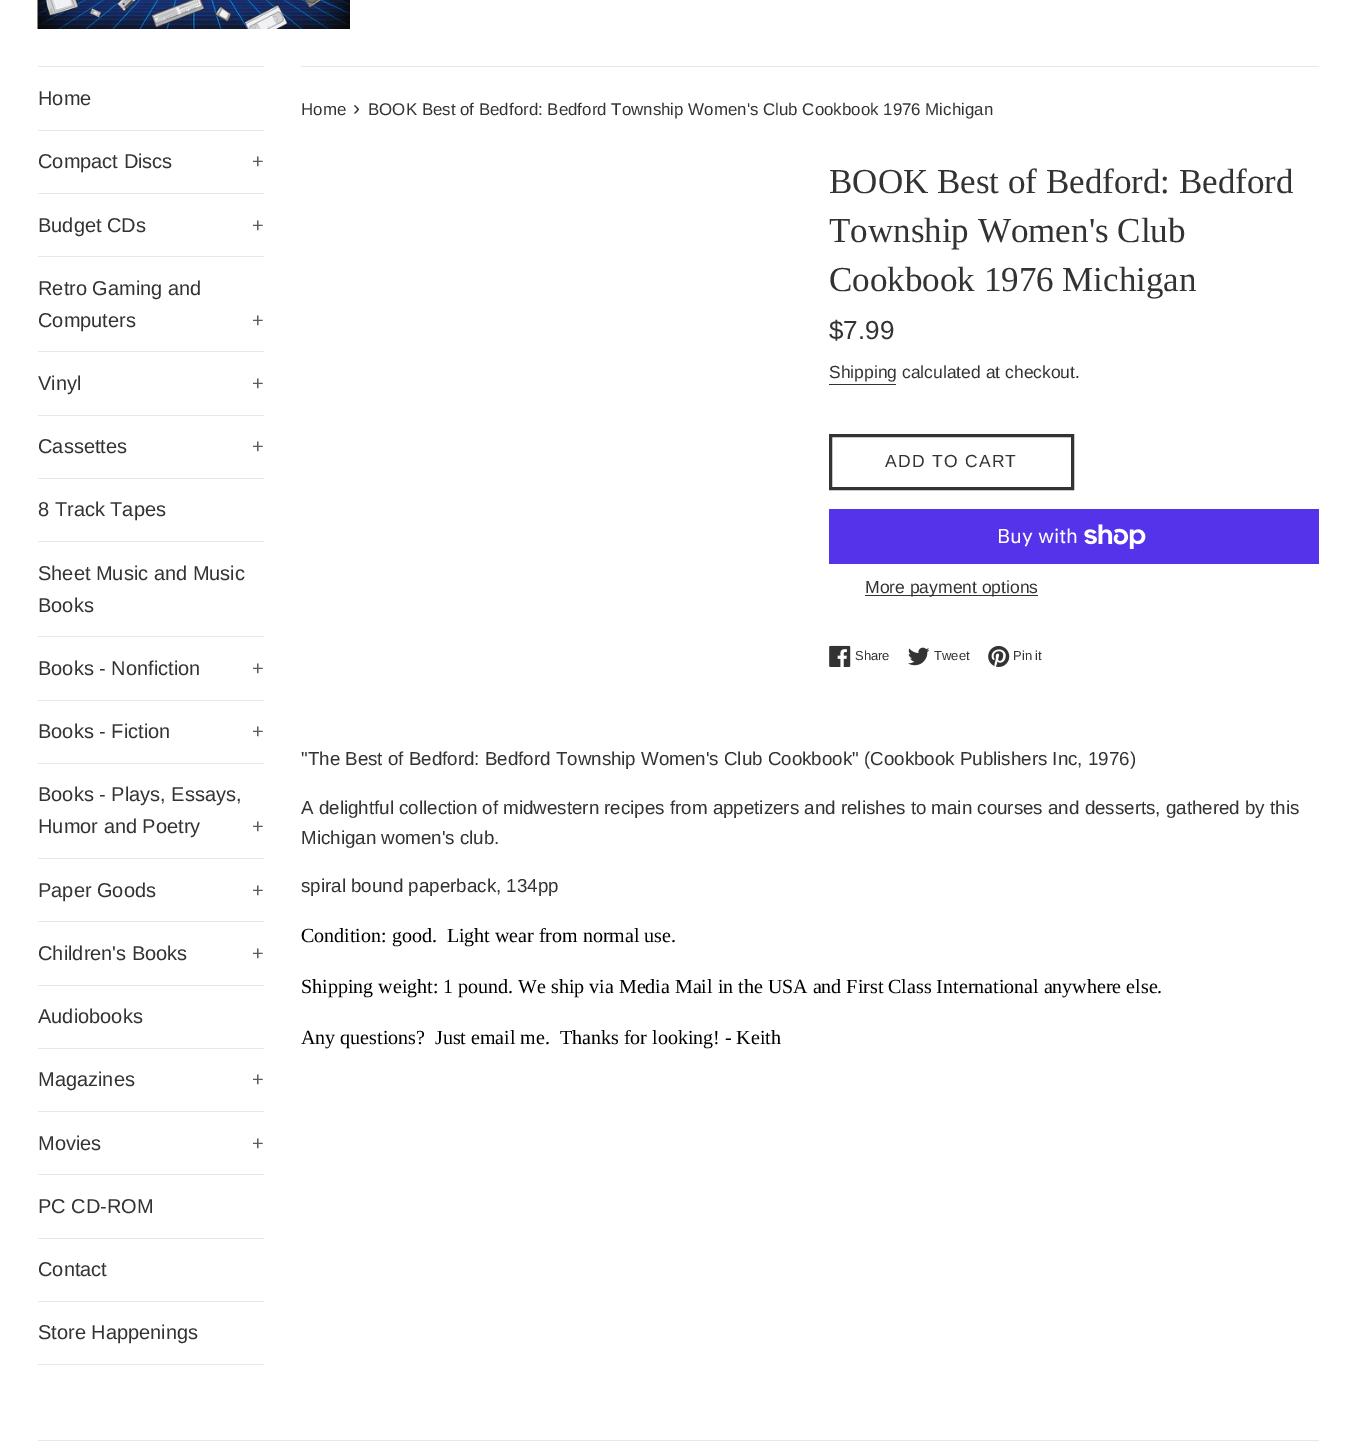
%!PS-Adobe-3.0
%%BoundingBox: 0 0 1356 1448
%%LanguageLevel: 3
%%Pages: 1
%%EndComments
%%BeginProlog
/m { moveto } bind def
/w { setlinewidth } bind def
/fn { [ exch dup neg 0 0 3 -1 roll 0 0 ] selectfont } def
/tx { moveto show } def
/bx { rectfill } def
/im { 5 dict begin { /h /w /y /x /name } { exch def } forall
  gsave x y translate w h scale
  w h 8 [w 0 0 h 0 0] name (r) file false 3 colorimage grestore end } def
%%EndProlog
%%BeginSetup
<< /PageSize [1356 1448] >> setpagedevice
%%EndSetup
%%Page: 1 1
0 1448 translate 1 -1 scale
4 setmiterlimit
1 setgray
0 0 1356 1448 bx
(image0.raw) 37 0 313 29 im
0.91 setgray
38 66 226 1 bx
38 130 226 1 bx
/LiberationSans-Regular 20 fn
0.2 setgray
(Home) 38 105 tx
0.91 setgray
38 193 226 1 bx
0.2 setgray
(Compact Discs) 38 168 tx
0.361 setgray
(+) 252 168 tx
0.91 setgray
38 256 226 1 bx
0.2 setgray
(Budget CDs) 38 232 tx
0.361 setgray
(+) 252 232 tx
0.91 setgray
38 351 226 1 bx
0.2 setgray
(Retro Gaming and) 38 295 tx
(Computers) 38 327 tx
0.361 setgray
(+) 252 327 tx
0.91 setgray
38 415 226 1 bx
0.2 setgray
(Vinyl) 38 390 tx
0.361 setgray
(+) 252 390 tx
0.91 setgray
38 478 226 1 bx
0.2 setgray
(Cassettes) 38 453 tx
0.361 setgray
(+) 252 453 tx
0.91 setgray
38 541 226 1 bx
0.2 setgray
(8 Track Tapes) 38 516 tx
0.91 setgray
38 636 226 1 bx
0.2 setgray
(Sheet Music and Music) 38 580 tx
(Books) 38 612 tx
0.91 setgray
38 700 226 1 bx
0.2 setgray
(Books - Nonfiction) 38 675 tx
0.361 setgray
(+) 252 675 tx
0.91 setgray
38 763 226 1 bx
0.2 setgray
(Books - Fiction) 38 738 tx
0.361 setgray
(+) 252 738 tx
0.91 setgray
38 858 226 1 bx
0.2 setgray
(Books - Plays, Essays,) 38 801 tx
(Humor and Poetry) 38 833 tx
0.361 setgray
(+) 252 833 tx
0.91 setgray
38 921 226 1 bx
0.2 setgray
(Paper Goods) 38 897 tx
0.361 setgray
(+) 252 897 tx
0.91 setgray
38 985 226 1 bx
0.2 setgray
(Children's Books) 38 960 tx
0.361 setgray
(+) 252 960 tx
0.91 setgray
38 1048 226 1 bx
0.2 setgray
(Audiobooks) 38 1023 tx
0.91 setgray
38 1111 226 1 bx
0.2 setgray
(Magazines) 38 1086 tx
0.361 setgray
(+) 252 1086 tx
0.91 setgray
38 1174 226 1 bx
0.2 setgray
(Movies) 38 1150 tx
0.361 setgray
(+) 252 1150 tx
0.91 setgray
38 1238 226 1 bx
0.2 setgray
(PC CD-ROM) 38 1213 tx
0.91 setgray
38 1301 226 1 bx
0.2 setgray
(Contact) 38 1276 tx
0.91 setgray
38 1364 226 1 bx
0.2 setgray
(Store Happenings) 38 1339 tx
0.91 setgray
301 66 1018 1 bx
/LiberationSans-Regular 16.9 fn
0.2 setgray
(Home) 301 115 tx
/LiberationSans-Regular 21 fn
(›) 353 115 tx
/LiberationSans-Regular 16.9 fn
(BOOK Best of Bedford: Bedford Township Women's Club Cookbook 1976 Michigan) 368 115 tx
/LiberationSerif-Regular 35 fn
(BOOK Best of Bedford: Bedford) 829 193 tx
(Township Women's Club) 829 242 tx
(Cookbook 1976 Michigan) 829 291 tx
/LiberationSans-Regular 26 fn
($7.99) 829 339 tx
/LiberationSans-Regular 17.5 fn
(Shipping calculated at checkout.) 829 378 tx
829 384 67 1 bx
3 w
830.5 435.5 242 53 rectstroke
885 467 m 1.25 0 (ADD TO CART) ashow
0.329 0.2 0.922 setrgbcolor
829 509 490 55 bx
/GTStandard-Regular 20 fn
1 setgray
(Buy with) 997 543 tx
(image1.raw) 1084 524 62 25 im
0.2 setgray
865 595 173 1 bx
/LiberationSans-Regular 17.5 fn
(More payment options) 865 593 tx
(image2.raw) 829 645 22 22 im
/LiberationSans-Regular 13 fn
(Share) 855 660 tx
(image3.raw) 908 647 22 19 im
(Tweet) 934 660 tx
(image4.raw) 988 645 22 22 im
(Pin it) 1013 660 tx
/LiberationSans-Regular 18.75 fn
("The Best of Bedford: Bedford Township Women's Club Cookbook" \(Cookbook Publishers Inc, 1976\)) 301 765 tx
(A delightful collection of midwestern recipes from appetizers and relishes to main courses and desserts, gathered by this) 301 814 tx
(Michigan women's club.) 301 844 tx
(spiral bound paperback, 134pp) 301 892 tx
/LiberationSerif-Regular 20 fn
0 setgray
(Condition: good.  Light wear from normal use.) 301 942 tx
(Shipping weight: 1 pound. We ship via Media Mail in the USA and First Class International anywhere else.) 301 993 tx
(Any questions?  Just email me.  Thanks for looking! - Keith) 301 1044 tx
0.91 setgray
38 1440 1281 1 bx
showpage
%%EOF
